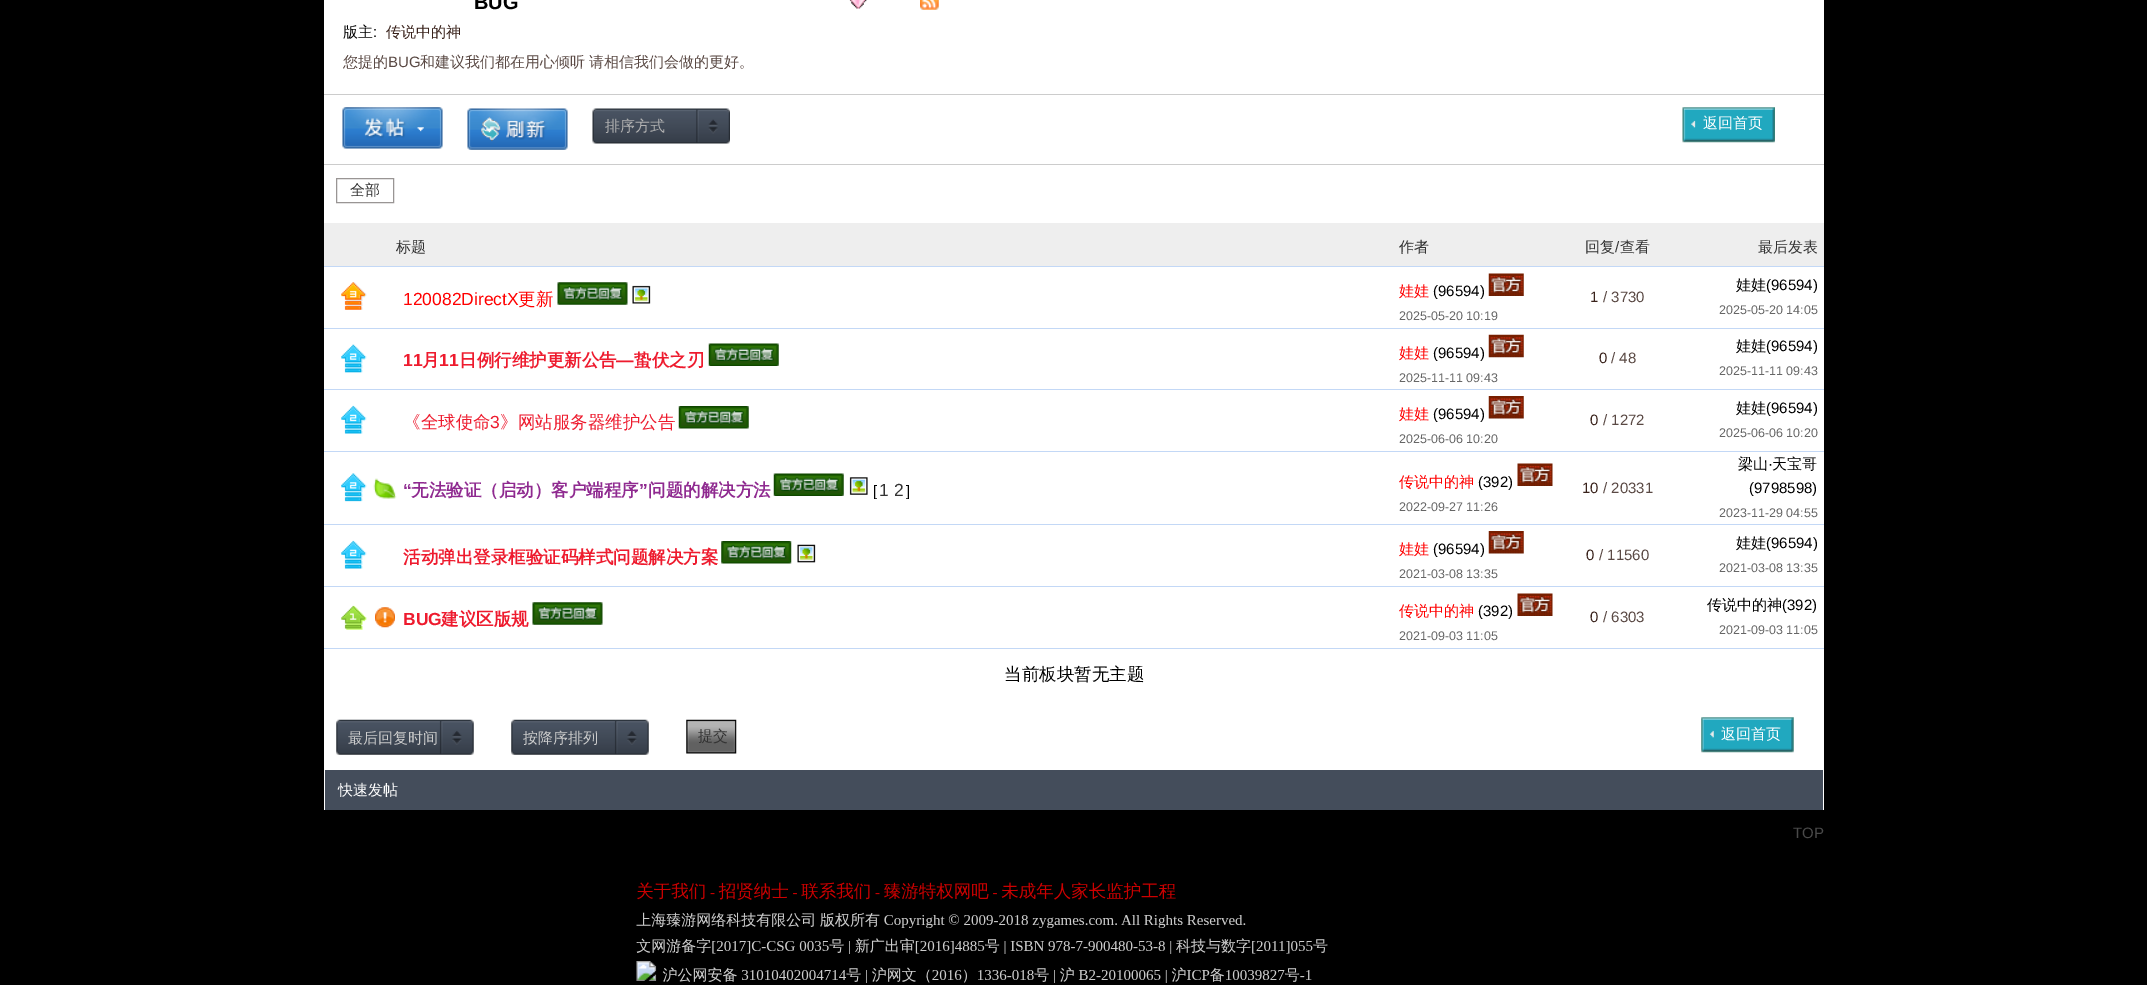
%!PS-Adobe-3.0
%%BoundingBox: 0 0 2147 985
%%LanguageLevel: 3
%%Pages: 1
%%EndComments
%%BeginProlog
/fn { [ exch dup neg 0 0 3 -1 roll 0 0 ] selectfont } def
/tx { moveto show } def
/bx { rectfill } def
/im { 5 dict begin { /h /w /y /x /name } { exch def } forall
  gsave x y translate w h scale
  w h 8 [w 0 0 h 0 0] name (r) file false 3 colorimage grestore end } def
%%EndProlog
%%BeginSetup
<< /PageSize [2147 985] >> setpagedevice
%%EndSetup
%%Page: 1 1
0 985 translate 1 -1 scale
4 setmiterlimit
0 setgray
0 0 2147 985 bx
1 setgray
324 0 1500 810 bx
0.8 setgray
324 94 1500 1 bx
/LiberationSans-Bold 20 fn
0 setgray
(BUG) 474 9 tx
(image0.raw) 849 0 18 9 im
(image1.raw) 920 0 19 10 im
/WenQuanYiZenHei-Medium 15 fn
(版主) 343 37 tx
/LiberationSans-Regular 15 fn
(:) 373 37 tx
/WenQuanYiZenHei-Medium 15 fn
0.224 0.133 0.106 setrgbcolor
(传说中的神) 386 37 tx
0.353 0.286 0.267 setrgbcolor
(您提的) 343 67 tx
/LiberationSans-Regular 15 fn
(BUG) 388 67 tx
/WenQuanYiZenHei-Medium 15 fn
(和建议我们都在用心倾听 请相信我们会做的更好。) 420 67 tx
(image2.raw) 342 107 101 42 im
(image3.raw) 467 108 101 42 im
(image4.raw) 592 108 138 36 im
0.702 setgray
(排序方式) 605 131 tx
(image5.raw) 1682 107 93 36 im
1 setgray
(返回首页) 1703 128 tx
0.8 setgray
324 164 1500 1 bx
0.6 0.584 0.58 setrgbcolor
336.5 178.5 57 24 rectstroke
0.2 setgray
(全部) 350 195 tx
0.933 setgray
324 223 1500 43 bx
0.2 setgray
(标题) 396 252 tx
(作者) 1399 252 tx
(回复) 1585 252 tx
/LiberationSans-Regular 15 fn
(/) 1615 252 tx
/WenQuanYiZenHei-Medium 15 fn
(查看) 1620 252 tx
0.765 0.847 0.965 setrgbcolor
324 266 1500 1 bx
0.2 setgray
(最后发表) 1758 252 tx
(image6.raw) 341 282 26 28 im
/LiberationSans-Regular 17.5 fn
1 0 0 setrgbcolor
(120082DirectX) 403 305 tx
/WenQuanYiZenHei-Medium 17.5 fn
(更新) 518 305 tx
(image7.raw) 557 282 71 23 im
(image8.raw) 632 285 19 19 im
/WenQuanYiZenHei-Medium 15 fn
(娃娃) 1399 296 tx
/LiberationSans-Regular 15 fn
0 setgray
(\(96594\)) 1433 296 tx
(image9.raw) 1488 273 36 23 im
/LiberationSans-Regular 12.5 fn
0.4 setgray
(2025-05-20 10:19) 1399 320 tx
/LiberationSans-Regular 15 fn
0.224 0.133 0.106 setrgbcolor
(1) 1590 302 tx
0.353 0.286 0.267 setrgbcolor
(/ 3730) 1603 302 tx
0.765 0.847 0.965 setrgbcolor
324 328 1500 1 bx
/WenQuanYiZenHei-Medium 15 fn
0 setgray
(娃娃) 1736 290 tx
/LiberationSans-Regular 15 fn
(\(96594\)) 1766 290 tx
/LiberationSans-Regular 12.5 fn
0.4 setgray
(2025-05-20 14:05) 1719 314 tx
(image10.raw) 341 344 26 29 im
/LiberationSans-Bold 17.5 fn
0.933 0.106 0.18 setrgbcolor
(11) 403 366 tx
/WenQuanYiZenHei-Bold 17.5 fn
(月) 422 366 tx
/LiberationSans-Bold 17.5 fn
(11) 439 366 tx
/WenQuanYiZenHei-Bold 17.5 fn
(日例行维护更新公告) 459 366 tx
/LiberationSans-Bold 17.5 fn
(—) 616 366 tx
/WenQuanYiZenHei-Bold 17.5 fn
(蛰伏之刃) 634 366 tx
(image11.raw) 708 343 71 23 im
/WenQuanYiZenHei-Medium 15 fn
1 0 0 setrgbcolor
(娃娃) 1399 358 tx
/LiberationSans-Regular 15 fn
0 setgray
(\(96594\)) 1433 358 tx
(image12.raw) 1488 334 36 24 im
/LiberationSans-Regular 12.5 fn
0.4 setgray
(2025-11-11 09:43) 1399 382 tx
/LiberationSans-Regular 15 fn
0.224 0.133 0.106 setrgbcolor
(0) 1599 363 tx
0.353 0.286 0.267 setrgbcolor
(/ 48) 1611 363 tx
0.765 0.847 0.965 setrgbcolor
324 389 1500 1 bx
/WenQuanYiZenHei-Medium 15 fn
0 setgray
(娃娃) 1736 351 tx
/LiberationSans-Regular 15 fn
(\(96594\)) 1766 351 tx
/LiberationSans-Regular 12.5 fn
0.4 setgray
(2025-11-11 09:43) 1719 375 tx
(image13.raw) 341 405 26 29 im
/WenQuanYiZenHei-Medium 17.5 fn
0.933 0.106 0.18 setrgbcolor
(《全球使命) 403 428 tx
/LiberationSans-Regular 17.5 fn
(3) 490 428 tx
/WenQuanYiZenHei-Medium 17.5 fn
(》网站服务器维护公告) 500 428 tx
(image14.raw) 678 406 71 23 im
/WenQuanYiZenHei-Medium 15 fn
1 0 0 setrgbcolor
(娃娃) 1399 419 tx
/LiberationSans-Regular 15 fn
0 setgray
(\(96594\)) 1433 419 tx
(image15.raw) 1488 396 36 23 im
/LiberationSans-Regular 12.5 fn
0.4 setgray
(2025-06-06 10:20) 1399 443 tx
/LiberationSans-Regular 15 fn
0.224 0.133 0.106 setrgbcolor
(0) 1590 425 tx
0.353 0.286 0.267 setrgbcolor
(/ 1272) 1603 425 tx
0.765 0.847 0.965 setrgbcolor
324 451 1500 1 bx
/WenQuanYiZenHei-Medium 15 fn
0 setgray
(娃娃) 1736 413 tx
/LiberationSans-Regular 15 fn
(\(96594\)) 1766 413 tx
/LiberationSans-Regular 12.5 fn
0.4 setgray
(2025-06-06 10:20) 1719 437 tx
(image16.raw) 341 473 26 29 im
(image17.raw) 373 478 24 21 im
/LiberationSans-Bold 17.5 fn
0.561 0.165 0.565 setrgbcolor
(“) 403 496 tx
/WenQuanYiZenHei-Bold 17.5 fn
(无法验证（启动）客户端程序) 411 496 tx
/LiberationSans-Bold 17.5 fn
(”) 639 496 tx
/WenQuanYiZenHei-Bold 17.5 fn
(问题的解决方法) 648 496 tx
(image18.raw) 773 473 71 23 im
(image19.raw) 849 477 19 18 im
/LiberationSans-Regular 15 fn
0 setgray
([) 873 496 tx
/LiberationSans-Regular 17.5 fn
0.2 setgray
(1 2) 879 496 tx
/LiberationSans-Regular 15 fn
0 setgray
(]) 906 496 tx
/WenQuanYiZenHei-Medium 15 fn
1 0 0 setrgbcolor
(传说中的神) 1399 487 tx
/LiberationSans-Regular 15 fn
0 setgray
(\(392\)) 1478 487 tx
(image20.raw) 1517 463 36 23 im
/LiberationSans-Regular 12.5 fn
0.4 setgray
(2022-09-27 11:26) 1399 511 tx
/LiberationSans-Regular 15 fn
0.224 0.133 0.106 setrgbcolor
(10) 1582 493 tx
0.353 0.286 0.267 setrgbcolor
(/ 20331) 1603 493 tx
0.765 0.847 0.965 setrgbcolor
324 524 1500 1 bx
/WenQuanYiZenHei-Medium 15 fn
0 setgray
(梁山) 1738 469 tx
/LiberationSans-Regular 15 fn
(·) 1768 469 tx
/WenQuanYiZenHei-Medium 15 fn
(天宝哥) 1772 469 tx
/LiberationSans-Regular 15 fn
(\(9798598\)) 1749 493 tx
/LiberationSans-Regular 12.5 fn
0.4 setgray
(2023-11-29 04:55) 1719 517 tx
(image13.raw) 341 540 26 29 im
/WenQuanYiZenHei-Bold 17.5 fn
0.933 0.106 0.18 setrgbcolor
(活动弹出登录框验证码样式问题解决方案) 403 563 tx
(image21.raw) 721 541 71 23 im
(image22.raw) 797 544 19 19 im
/WenQuanYiZenHei-Medium 15 fn
1 0 0 setrgbcolor
(娃娃) 1399 554 tx
/LiberationSans-Regular 15 fn
0 setgray
(\(96594\)) 1433 554 tx
(image15.raw) 1488 531 36 23 im
/LiberationSans-Regular 12.5 fn
0.4 setgray
(2021-03-08 13:35) 1399 578 tx
/LiberationSans-Regular 15 fn
0.224 0.133 0.106 setrgbcolor
(0) 1586 560 tx
0.353 0.286 0.267 setrgbcolor
(/ 11560) 1599 560 tx
0.765 0.847 0.965 setrgbcolor
324 586 1500 1 bx
/WenQuanYiZenHei-Medium 15 fn
0 setgray
(娃娃) 1736 548 tx
/LiberationSans-Regular 15 fn
(\(96594\)) 1766 548 tx
/LiberationSans-Regular 12.5 fn
0.4 setgray
(2021-03-08 13:35) 1719 572 tx
(image23.raw) 341 605 26 25 im
(image24.raw) 375 607 20 21 im
/LiberationSans-Bold 17.5 fn
0.933 0.106 0.18 setrgbcolor
(BUG) 403 625 tx
/WenQuanYiZenHei-Bold 17.5 fn
(建议区版规) 441 625 tx
(image7.raw) 532 602 71 23 im
/WenQuanYiZenHei-Medium 15 fn
1 0 0 setrgbcolor
(传说中的神) 1399 616 tx
/LiberationSans-Regular 15 fn
0 setgray
(\(392\)) 1478 616 tx
(image20.raw) 1517 593 36 23 im
/LiberationSans-Regular 12.5 fn
0.4 setgray
(2021-09-03 11:05) 1399 640 tx
/LiberationSans-Regular 15 fn
0.224 0.133 0.106 setrgbcolor
(0) 1590 622 tx
0.353 0.286 0.267 setrgbcolor
(/ 6303) 1603 622 tx
0.765 0.847 0.965 setrgbcolor
324 648 1500 1 bx
/WenQuanYiZenHei-Medium 15 fn
0 setgray
(传说中的神) 1707 610 tx
/LiberationSans-Regular 15 fn
(\(392\)) 1782 610 tx
/LiberationSans-Regular 12.5 fn
0.4 setgray
(2021-09-03 11:05) 1719 634 tx
/WenQuanYiZenHei-Medium 17.5 fn
0 setgray
(当前板块暂无主题) 1004 680 tx
(image25.raw) 336 719 138 36 im
/WenQuanYiZenHei-Medium 15 fn
0.8 setgray
(最后回复时间) 348 743 tx
(image25.raw) 511 719 138 36 im
(按降序排列) 523 743 tx
(image26.raw) 686 719 51 35 im
0.2 setgray
(提交) 698 741 tx
(image27.raw) 1701 717 93 36 im
1 setgray
(返回首页) 1721 739 tx
0.267 0.302 0.357 setrgbcolor
325 770 1498 40 bx
1 setgray
(快速发帖) 338 795 tx
/LiberationSans-Regular 15 fn
0.29 setgray
(TOP) 1793 838 tx
(image28.raw) 636 882 692 101 im
showpage
%%EOF
